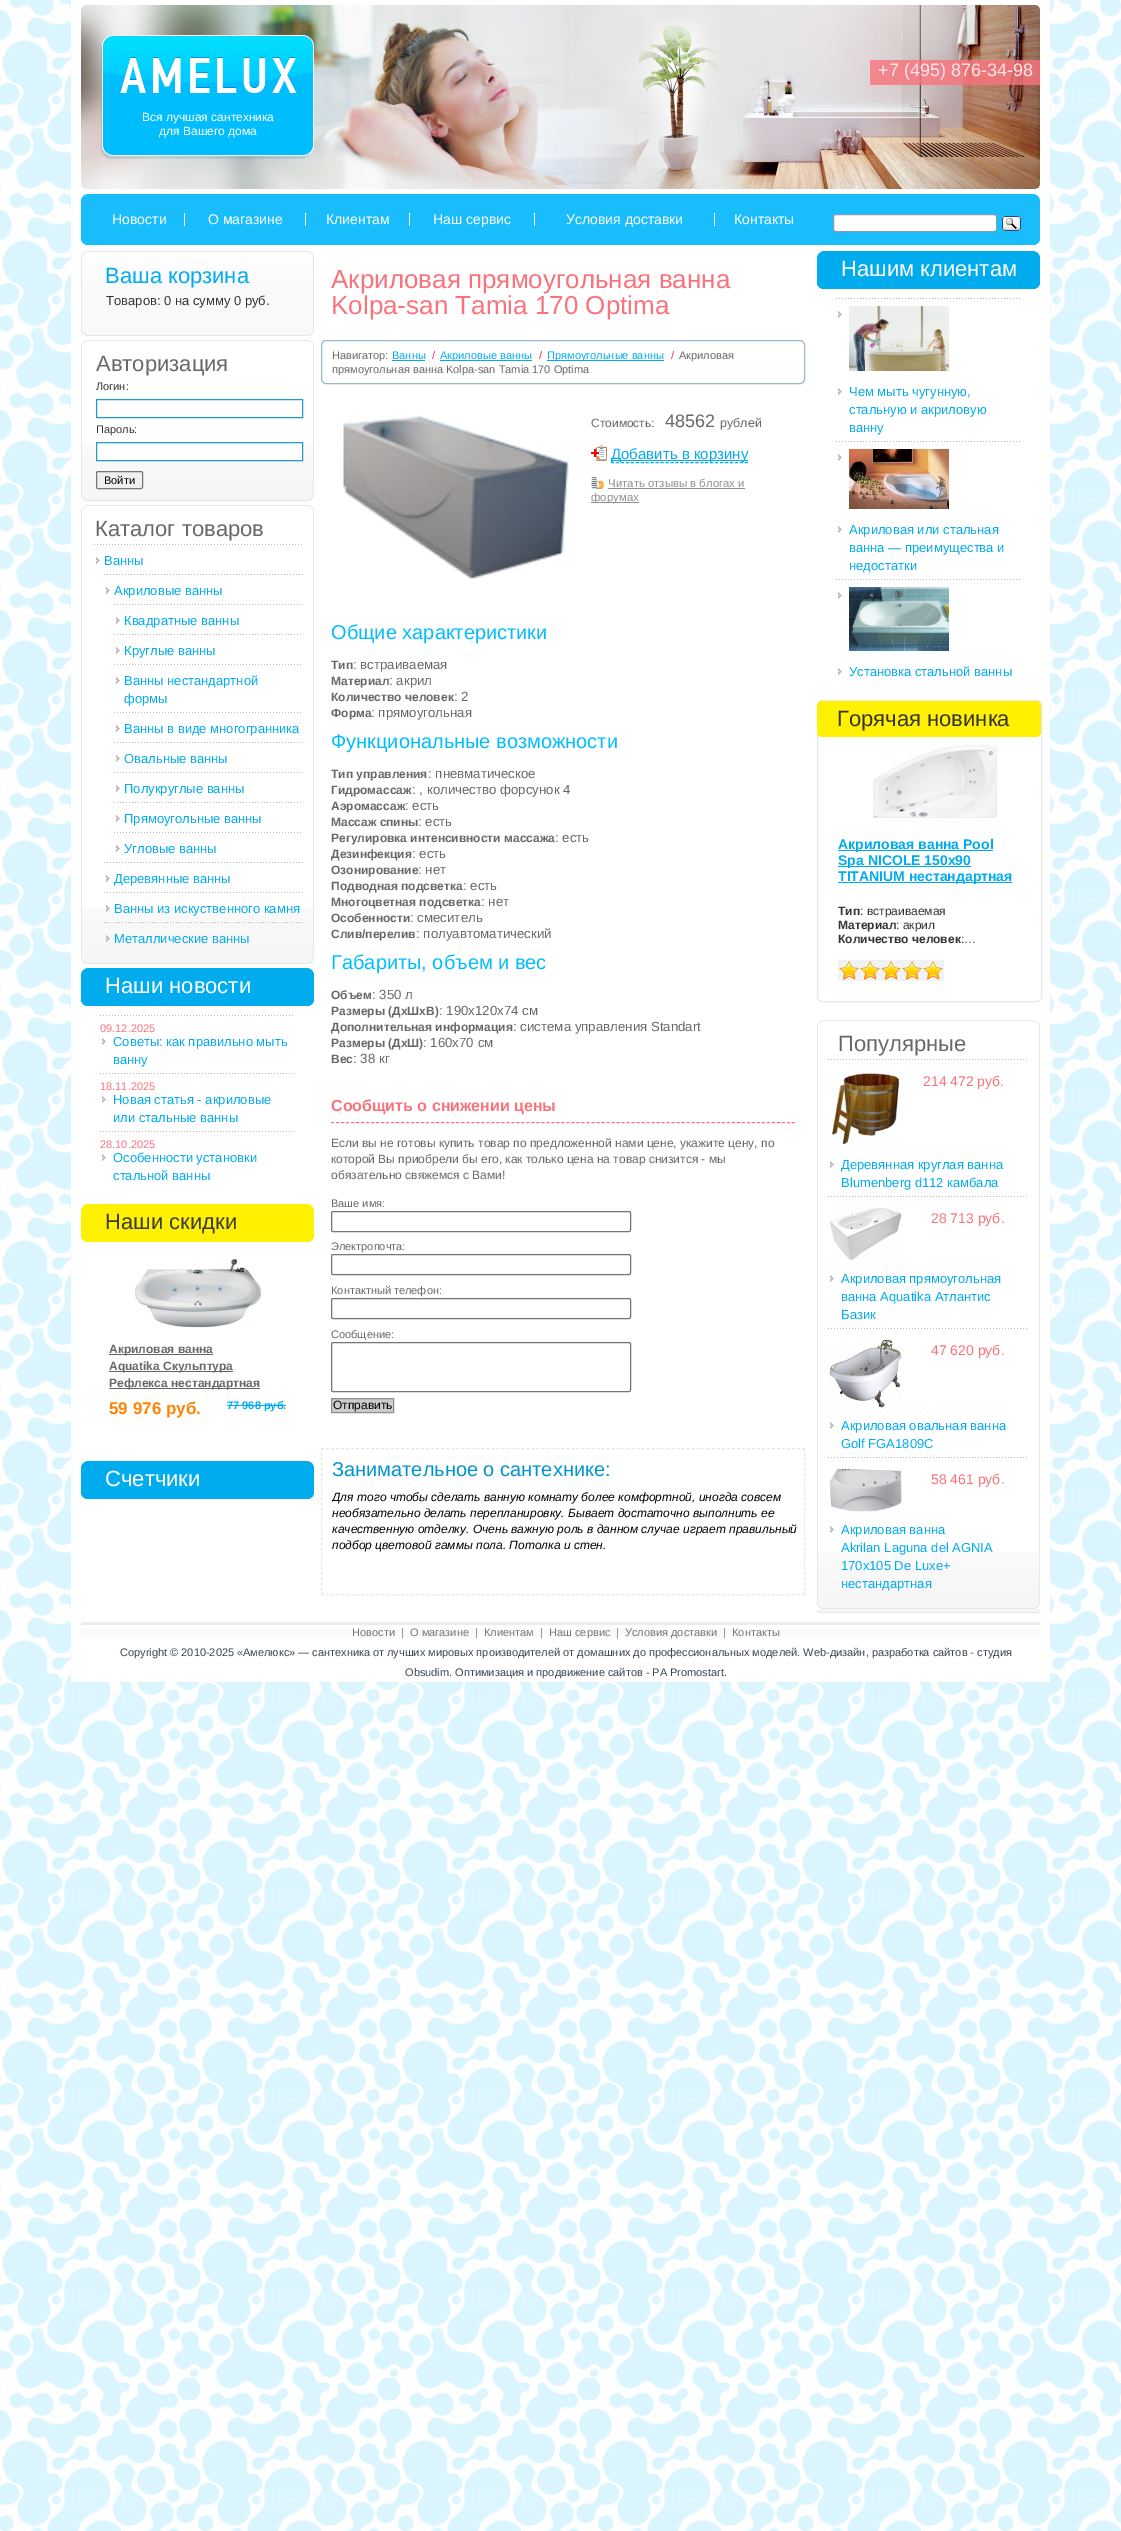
%!PS-Adobe-3.0
%%BoundingBox: 0 0 1121 2531
%%LanguageLevel: 3
%%Pages: 1
%%EndComments
%%BeginProlog
/m { moveto } bind def
/l { lineto } bind def
/h { closepath } bind def
/f { fill } bind def
/S { stroke } bind def
/q { gsave } bind def
/Q { grestore } bind def
/fn { [ exch dup neg 0 0 3 -1 roll 0 0 ] selectfont } def
/tx { moveto show } def
/bx { rectfill } def
/al { dup .setfillconstantalpha .setstrokeconstantalpha } def
/rr { 5 dict begin { /r /h /w /y /x } { exch def } forall
  x r add y moveto x w add y 2 copy h add r arct x w add y h add x 1 index r arct
  x y h add x y r arct x y 2 copy exch w add exch r arct closepath end } def
/im { 5 dict begin { /h /w /y /x /name } { exch def } forall
  gsave x y translate w h scale
  w h 8 [w 0 0 h 0 0] name (r) file false 3 colorimage grestore end } def
%%EndProlog
%%BeginSetup
<< /PageSize [1121 2531] /PageUsesTransparency true >> setpagedevice
%%EndSetup
%%Page: 1 1
0 .pushpdf14devicefilter
0 2531 translate 1 -1 scale
4 setmiterlimit
1 setgray
0 0 1121 2531 bx
(image0.raw) 0 0 1121 2531 im
71 0 979 1682 bx
(image1.raw) 81 5 959 184 im
0.8 al
0.976 0.451 0.486 setrgbcolor
870 60 170 25 bx
/LiberationSans-Regular 18 fn
1 al
0.984 0.894 0.902 setrgbcolor
(+7 \(495\) 876-34-98) 878 76 tx
(image2.raw) 101 35 213 124 im
/LiberationSans-Regular 12 fn
1 setgray
(Вся лучшая сантехника) 142 121 tx
(для Вашего дома) 159 135 tx
0.098 0.741 0.988 setrgbcolor
87 194 947 51 bx
(image3.raw) 81 194 6 51 im
/LiberationSans-Regular 14 fn
1 setgray
(Новости) 112 224 tx
184 213 1 13 bx
(О магазине) 208 224 tx
305 213 1 13 bx
(Клиентам) 326 224 tx
409 213 1 13 bx
(Наш сервис) 433 224 tx
534 213 1 13 bx
(Условия доставки) 566 224 tx
714 213 1 13 bx
(Контакты) 734 224 tx
(image4.raw) 1034 194 6 51 im
833.5 214.5 163 17 2.5 rr q f Q
0.498 0.616 0.725 setrgbcolor
S
(image5.raw) 1002 216 19 15 im
(image6.raw) 82 251 231 42 im
0.91 0.902 0.902 setrgbcolor
81 252 1 83 bx
(image7.raw) 81 251 6 5 im
/LiberationSans-Regular 22 fn
0 0.675 0.933 setrgbcolor
(Ваша корзина) 105 283 tx
0.91 0.902 0.902 setrgbcolor
313 252 1 83 bx
(image8.raw) 308 251 6 5 im
0.976 setgray
82 293 231 42 bx
0.91 0.902 0.902 setrgbcolor
81 335 233 1 bx
(image9.raw) 309 331 5 5 im
(image10.raw) 81 331 5 5 im
/LiberationSans-Regular 13 fn
0.208 0.204 0.204 setrgbcolor
(Товаров: 0 на сумму 0 руб.) 106 305 tx
0.91 0.902 0.902 setrgbcolor
81 340 1 160 bx
(image11.raw) 81 340 6 5 im
87 340 221 1 bx
/LiberationSans-Regular 22 fn
0.408 setgray
(Авторизация) 96 371 tx
0.91 0.902 0.902 setrgbcolor
313 340 1 160 bx
(image12.raw) 308 340 6 5 im
(image13.raw) 82 445 231 56 im
(image14.raw) 309 496 5 5 im
(image15.raw) 81 496 5 5 im
/LiberationSans-Regular 11 fn
0.208 0.204 0.204 setrgbcolor
(Логин:) 96 390 tx
0.125 0.612 0.8 setrgbcolor
96.5 399.5 206 18 rectstroke
0.208 0.204 0.204 setrgbcolor
(Пароль:) 96 433 tx
1 setgray
97 445 205 15 bx
0.125 0.612 0.8 setrgbcolor
96.5 442.5 206 18 rectstroke
0.937 setgray
96.5 471.5 46 17 1.5 rr q f Q
0.463 setgray
S
0 setgray
(Войти) 104 484 tx
0.91 0.902 0.902 setrgbcolor
81 505 1 458 bx
(image11.raw) 81 505 6 5 im
87 505 221 1 bx
/LiberationSans-Regular 22 fn
0.408 setgray
(Каталог товаров) 95 536 tx
0.91 0.902 0.902 setrgbcolor
313 505 1 458 bx
(image12.raw) 308 505 6 5 im
(image13.raw) 82 908 231 56 im
(image14.raw) 309 959 5 5 im
(image15.raw) 81 959 5 5 im
(image16.raw) 94 544 208 1 im
(image17.raw) 96 557 4 7 im
/LiberationSans-Regular 13 fn
0 0.675 0.933 setrgbcolor
(Ванны) 104 565 tx
(image18.raw) 104 574 199 1 im
(image17.raw) 106 587 4 7 im
(Акриловые ванны) 114 595 tx
(image19.raw) 114 604 187 1 im
(image17.raw) 116 617 4 7 im
(Квадратные ванны) 124 625 tx
(image19.raw) 114 634 187 1 im
(image17.raw) 116 647 4 7 im
(Круглые ванны) 124 655 tx
(image19.raw) 114 664 187 1 im
(image17.raw) 116 677 4 7 im
(Ванны нестандартной) 124 685 tx
(формы) 124 703 tx
(image19.raw) 114 712 187 1 im
(image17.raw) 116 725 4 7 im
(Ванны в виде многогранника) 124 733 tx
(image19.raw) 114 742 187 1 im
(image17.raw) 116 755 4 7 im
(Овальные ванны) 124 763 tx
(image19.raw) 114 772 187 1 im
(image17.raw) 116 785 4 7 im
(Полукруглые ванны) 124 793 tx
(image19.raw) 114 802 187 1 im
(image17.raw) 116 815 4 7 im
(Прямоугольные ванны) 124 823 tx
(image19.raw) 114 832 187 1 im
(image17.raw) 116 845 4 7 im
(Угловые ванны) 124 853 tx
(image18.raw) 104 862 199 1 im
(image17.raw) 106 875 4 7 im
(Деревянные ванны) 114 883 tx
(image18.raw) 104 892 199 1 im
(image20.raw) 106 905 4 7 im
(Ванны из искуственного камня) 114 913 tx
(image21.raw) 104 922 199 1 im
(image22.raw) 106 935 4 7 im
(Металлические ванны) 114 943 tx
81 968 233 38 bx
(image23.raw) 81 968 6 6 im
(image24.raw) 308 968 6 6 im
/LiberationSans-Regular 22 fn
1 setgray
(Наши новости) 105 993 tx
(image25.raw) 81 1001 5 5 im
(image26.raw) 309 1001 5 5 im
(image27.raw) 100 1015 193 1 im
/LiberationSans-Regular 11 fn
0.976 0.451 0.486 setrgbcolor
(09.12.2025) 100 1032 tx
(image17.raw) 102 1038 4 7 im
/LiberationSans-Regular 13 fn
0 0.675 0.933 setrgbcolor
(Советы: как правильно мыть) 113 1046 tx
(ванну) 113 1064 tx
(image27.raw) 100 1073 193 1 im
/LiberationSans-Regular 11 fn
0.976 0.451 0.486 setrgbcolor
(18.11.2025) 100 1090 tx
(image17.raw) 102 1096 4 7 im
/LiberationSans-Regular 13 fn
0 0.675 0.933 setrgbcolor
(Новая статья - акриловые) 113 1104 tx
(или стальные ванны) 113 1122 tx
(image27.raw) 100 1131 193 1 im
/LiberationSans-Regular 11 fn
0.976 0.451 0.486 setrgbcolor
(28.10.2025) 100 1148 tx
(image17.raw) 102 1154 4 7 im
/LiberationSans-Regular 13 fn
0 0.675 0.933 setrgbcolor
(Особенности установки) 113 1162 tx
(стальной ванны) 113 1180 tx
1 0.945 0 setrgbcolor
81 1204 233 38 bx
(image28.raw) 81 1204 6 6 im
(image29.raw) 308 1204 6 6 im
/LiberationSans-Regular 22 fn
0.235 setgray
(Наши скидки) 105 1229 tx
(image30.raw) 81 1237 5 5 im
(image31.raw) 309 1237 5 5 im
(image32.raw) 135 1259 127 69 im
0.4 setgray
109 1354 104 1 bx
/LiberationSans-Bold 12 fn
0.408 setgray
(Акриловая ванна) 109 1353 tx
0.4 setgray
109 1371 124 1 bx
0.408 setgray
(Aquatika Скульптура) 109 1370 tx
0.4 setgray
109 1388 151 1 bx
0.408 setgray
(Рефлекса нестандартная) 109 1387 tx
/LiberationSans-Bold 17 fn
1 0.51 0 setrgbcolor
(59 976 руб.) 109 1414 tx
/LiberationSans-Bold 11 fn
0 0.675 0.933 setrgbcolor
(77 968 руб.) 227 1409 tx
227 1405 59 1 bx
81 1461 233 38 bx
(image23.raw) 81 1461 6 6 im
(image24.raw) 308 1461 6 6 im
/LiberationSans-Regular 22 fn
1 setgray
(Счетчики) 105 1486 tx
(image25.raw) 81 1494 5 5 im
(image26.raw) 309 1494 5 5 im
/LiberationSans-Regular 26 fn
0.976 0.451 0.486 setrgbcolor
(Акриловая прямоугольная ванна) 331 288 tx
(Kolpa-san Tamia 170 Optima) 331 314 tx
0.596 0.722 0.804 setrgbcolor
321.5 340.5 483 43 4.5 rr S
/LiberationSans-Regular 11 fn
0.408 setgray
(Навигатор:) 332 359 tx
0 0.675 0.933 setrgbcolor
(Ванны) 392 359 tx
392 360 33 1 bx
0.941 0.114 0.369 setrgbcolor
(/) 432 359 tx
0 0.675 0.933 setrgbcolor
440 360 92 1 bx
(Акриловые ванны) 440 359 tx
0.941 0.114 0.369 setrgbcolor
(/) 539 359 tx
0 0.675 0.933 setrgbcolor
547 360 117 1 bx
(Прямоугольные ванны) 547 359 tx
0.941 0.114 0.369 setrgbcolor
(/) 671 359 tx
0.408 setgray
(Акриловая) 679 359 tx
(прямоугольная ванна Kolpa-san Tamia 170 Optima) 332 373 tx
(image33.raw) 343 416 226 164 im
/LiberationSans-Regular 12 fn
(Стоимость:) 591 427 tx
/LiberationSans-Regular 18 fn
(48562) 665 427 tx
/LiberationSans-Regular 12.5 fn
(рублей) 720 427 tx
(image34.raw) 591 445 16 16 im
0 0.675 0.933 setrgbcolor
[3 1.96] 0 setdash
611 462.5 m 748 462.5 l S
611 460 137 1 bx
/LiberationSans-Regular 15 fn
(Добавить в корзину) 611 459 tx
(image35.raw) 591 477 13 12 im
/LiberationSans-Regular 11.4 fn
0.569 setgray
(Читать отзывы в блогах и) 608 487 tx
608 488 137 1 bx
591 502 48 1 bx
(форумах) 591 501 tx
/LiberationSans-Regular 20 fn
0 0.741 0.992 setrgbcolor
(Общие характеристики) 331 639 tx
/LiberationSans-Bold 12 fn
0.408 setgray
(Тип) 331 669 tx
/LiberationSans-Regular 13.25 fn
(: встраиваемая) 353 669 tx
/LiberationSans-Bold 12 fn
(Материал) 331 685 tx
/LiberationSans-Regular 13.25 fn
(: акрил) 389 685 tx
/LiberationSans-Bold 12 fn
(Количество человек) 331 701 tx
/LiberationSans-Regular 13.25 fn
(: 2) 454 701 tx
/LiberationSans-Bold 12 fn
(Форма) 331 717 tx
/LiberationSans-Regular 13.25 fn
(: прямоугольная) 371 717 tx
/LiberationSans-Regular 20 fn
0 0.741 0.992 setrgbcolor
(Функциональные возможности) 331 748 tx
/LiberationSans-Bold 12 fn
0.408 setgray
(Тип управления) 331 778 tx
/LiberationSans-Regular 13.25 fn
(: пневматическое) 428 778 tx
/LiberationSans-Bold 12 fn
(Гидромассаж) 331 794 tx
/LiberationSans-Regular 13.25 fn
(: , количество форсунок 4) 412 794 tx
/LiberationSans-Bold 12 fn
(Аэромассаж) 331 810 tx
/LiberationSans-Regular 13.25 fn
(: есть) 405 810 tx
/LiberationSans-Bold 12 fn
(Массаж спины) 331 826 tx
/LiberationSans-Regular 13.25 fn
(: есть) 418 826 tx
/LiberationSans-Bold 12 fn
(Регулировка интенсивности массажа) 331 842 tx
/LiberationSans-Regular 13.25 fn
(: есть) 555 842 tx
/LiberationSans-Bold 12 fn
(Дезинфекция) 331 858 tx
/LiberationSans-Regular 13.25 fn
(: есть) 412 858 tx
/LiberationSans-Bold 12 fn
(Озонирование) 331 874 tx
/LiberationSans-Regular 13.25 fn
(: нет) 418 874 tx
/LiberationSans-Bold 12 fn
(Подводная подсветка) 331 890 tx
/LiberationSans-Regular 13.25 fn
(: есть) 463 890 tx
/LiberationSans-Bold 12 fn
(Многоцветная подсветка) 331 906 tx
/LiberationSans-Regular 13.25 fn
(: нет) 481 906 tx
/LiberationSans-Bold 12 fn
(Особенности) 331 922 tx
/LiberationSans-Regular 13.25 fn
(: смеситель) 410 922 tx
/LiberationSans-Bold 12 fn
(Слив/перелив) 331 938 tx
/LiberationSans-Regular 13.25 fn
(: полуавтоматический) 416 938 tx
/LiberationSans-Regular 20 fn
0 0.741 0.992 setrgbcolor
(Габариты, объем и вес) 331 969 tx
/LiberationSans-Bold 12 fn
0.408 setgray
(Объем) 331 999 tx
/LiberationSans-Regular 13.25 fn
(: 350 л) 372 999 tx
/LiberationSans-Bold 12 fn
(Размеры \(ДхШхВ\)) 331 1015 tx
/LiberationSans-Regular 13.25 fn
(: 190х120х74 см) 439 1015 tx
/LiberationSans-Bold 12 fn
(Дополнительная информация) 331 1031 tx
/LiberationSans-Regular 13.25 fn
(: система управления Standart) 513 1031 tx
/LiberationSans-Bold 12 fn
(Размеры \(ДхШ\)) 331 1047 tx
/LiberationSans-Regular 13.25 fn
(: 160х70 см) 423 1047 tx
/LiberationSans-Bold 12 fn
(Вес) 331 1063 tx
/LiberationSans-Regular 13.25 fn
(: 38 кг) 353 1063 tx
0.976 0.451 0.486 setrgbcolor
[3 2.01] 0 setdash
331 1122.5 m 795 1122.5 l S
/LiberationSans-Bold 16 fn
(Сообщить о снижении цены) 331 1111 tx
/LiberationSans-Regular 12 fn
0.408 setgray
(Если вы не готовы купить товар по предложенной нами цене, укажите цену, по) 331 1147 tx
(которой Вы приобрели бы его, как только цена на товар снизится - мы) 331 1163 tx
(обязательно свяжемся с Вами!) 331 1179 tx
/LiberationSans-Regular 11 fn
(Ваше имя:) 331 1207 tx
0.463 setgray
[] 0 setdash
331.5 1211.5 299 20 1.5 rr S
0.408 setgray
(Электропочта:) 331 1250 tx
0.463 setgray
331.5 1254.5 299 20 1.5 rr S
0.408 setgray
(Контактный телефон:) 331 1294 tx
0.463 setgray
331.5 1298.5 299 20 1.5 rr S
0.408 setgray
(Сообщение:) 331 1338 tx
0.463 setgray
331.5 1342.5 299 49 1.5 rr S
0.8 setgray
331.5 1398.5 m 393.5 1398.5 l 393.5 1412.5 l 331.5 1412.5 l h q f Q
0.561 setgray
S
/LiberationSans-Regular 12 fn
0 setgray
(Отправить) 333 1409 tx
0.91 0.902 0.902 setrgbcolor
[3 2.01] 0 setdash
321 1448.5 m 805 1448.5 l S
[3 1.97] 0 setdash
804.5 1448 m 804.5 1595 l S
[3 2.01] 0 setdash
321 1594.5 m 805 1594.5 l S
[3 1.97] 0 setdash
321.5 1448 m 321.5 1595 l S
/LiberationSans-Regular 20 fn
0 0.584 0.816 setrgbcolor
(Занимательное о сантехнике:) 332 1476 tx
q
332 1484 472 92 rectclip
/LiberationSans-Italic 12 fn
0 setgray
(Для того чтобы сделать ванную комнату более комфортной, иногда совсем) 332 1501 tx
Q
/LiberationSans-Italic 12 fn
0 setgray
(необязательно делать перепланировку. Бывает достаточно выполнить ее) 332 1517 tx
(качественную отделку. Очень важную роль в данном случае играет правильный) 332 1533 tx
(подбор цветовой гаммы пола. Потолка и стен.) 332 1549 tx
0 0.675 0.933 setrgbcolor
817 251 223 38 bx
(image23.raw) 817 251 6 6 im
(image24.raw) 1034 251 6 6 im
/LiberationSans-Regular 22 fn
1 setgray
(Нашим клиентам) 841 276 tx
(image25.raw) 817 284 5 5 im
(image26.raw) 1035 284 5 5 im
(image36.raw) 836 298 184 1 im
(image17.raw) 838 311 4 7 im
(image37.raw) 849 306 100 65 im
(image17.raw) 838 388 4 7 im
/LiberationSans-Regular 13 fn
0 0.675 0.933 setrgbcolor
(Чем мыть чугунную,) 849 396 tx
(стальную и акриловую) 849 414 tx
(ванну) 849 432 tx
(image36.raw) 836 441 184 1 im
(image17.raw) 838 454 4 7 im
(image38.raw) 849 449 100 60 im
(image17.raw) 838 526 4 7 im
(Акриловая или стальная) 849 534 tx
(ванна — преимущества и) 849 552 tx
(недостатки) 849 570 tx
(image36.raw) 836 579 184 1 im
(image17.raw) 838 592 4 7 im
(image39.raw) 849 587 100 64 im
(image17.raw) 838 668 4 7 im
(Установка стальной ванны) 849 676 tx
0.91 0.902 0.902 setrgbcolor
[] 0 setdash
817.5 700.5 224 301 4.5 rr S
1 0.945 0 setrgbcolor
817 701 224 36 5 rr f
/LiberationSans-Regular 22 fn
0.208 0.204 0.204 setrgbcolor
(Горячая новинка) 837 726 tx
(image40.raw) 873 745 124 73 im
0 0.675 0.933 setrgbcolor
838 850 155 1 bx
/LiberationSans-Bold 14 fn
(Акриловая ванна Pool) 838 849 tx
838 866 133 1 bx
(Spa NICOLE 150x90) 838 865 tx
838 882 174 1 bx
(TITANIUM нестандартная) 838 881 tx
/LiberationSans-Bold 12 fn
0.208 0.204 0.204 setrgbcolor
(Тип) 838 915 tx
/LiberationSans-Regular 12 fn
(: встраиваемая) 860 915 tx
/LiberationSans-Bold 12 fn
(Материал) 838 929 tx
/LiberationSans-Regular 12 fn
(: акрил) 896 929 tx
/LiberationSans-Bold 12 fn
(Количество человек) 838 943 tx
/LiberationSans-Regular 12 fn
(:…) 961 943 tx
(image41.raw) 838 960 106 21 im
(image42.raw) 817 1609 223 4 im
0.91 0.902 0.902 setrgbcolor
817 1020 1 588 bx
(image11.raw) 817 1020 6 5 im
823 1020 211 1 bx
/LiberationSans-Regular 22 fn
0.408 setgray
(Популярные) 838 1051 tx
0.91 0.902 0.902 setrgbcolor
1039 1020 1 588 bx
(image12.raw) 1034 1020 6 5 im
(image43.raw) 818 1553 221 56 im
(image14.raw) 1035 1604 5 5 im
(image15.raw) 817 1604 5 5 im
(image18.raw) 828 1059 199 1 im
(image44.raw) 831 1072 69 73 im
/LiberationSans-Regular 14 fn
0.976 0.451 0.486 setrgbcolor
(214 472 руб.) 923 1086 tx
(image17.raw) 830 1161 4 7 im
/LiberationSans-Regular 13 fn
0 0.675 0.933 setrgbcolor
(Деревянная круглая ванна) 841 1169 tx
(Blumenberg d112 камбала) 841 1187 tx
(image18.raw) 828 1196 199 1 im
(image45.raw) 830 1208 72 53 im
/LiberationSans-Regular 14 fn
0.976 0.451 0.486 setrgbcolor
(28 713 руб.) 931 1223 tx
(image17.raw) 830 1275 4 7 im
/LiberationSans-Regular 13 fn
0 0.675 0.933 setrgbcolor
(Акриловая прямоугольная) 841 1283 tx
(ванна Aquatika Атлантис) 841 1301 tx
(Базик) 841 1319 tx
(image18.raw) 828 1328 199 1 im
(image46.raw) 829 1339 73 69 im
/LiberationSans-Regular 14 fn
0.976 0.451 0.486 setrgbcolor
(47 620 руб.) 931 1355 tx
(image17.raw) 830 1422 4 7 im
/LiberationSans-Regular 13 fn
0 0.675 0.933 setrgbcolor
(Акриловая овальная ванна) 841 1430 tx
(Golf FGA1809C) 841 1448 tx
(image18.raw) 828 1457 199 1 im
(image47.raw) 829 1468 73 44 im
/LiberationSans-Regular 14 fn
0.976 0.451 0.486 setrgbcolor
(58 461 руб.) 931 1484 tx
(image17.raw) 830 1526 4 7 im
/LiberationSans-Regular 13 fn
0 0.675 0.933 setrgbcolor
(Акриловая ванна) 841 1534 tx
(Akrilan Laguna del AGNIA) 841 1552 tx
(170x105 De Luxe+) 841 1570 tx
(нестандартная) 841 1588 tx
(image48.raw) 81 1622 959 16 im
/LiberationSans-Regular 11 fn
0.455 setgray
(Новости) 352 1636 tx
(|) 401 1636 tx
(О магазине) 410 1636 tx
(|) 475 1636 tx
(Клиентам) 484 1636 tx
(|) 540 1636 tx
(Наш сервис) 549 1636 tx
(|) 616 1636 tx
(Условия доставки) 625 1636 tx
(|) 723 1636 tx
(Контакты) 732 1636 tx
0.227 0.267 0.325 setrgbcolor
(Copyright © 2010-2025 «Амелюкс» — сантехника от лучших мировых производителей от домашних до профессиональных моделей. Web-дизайн, разработка сайтов - студия) 120 1656 tx
(Obsudim. Оптимизация и продвижение сайтов - РА Promostart.) 405 1676 tx
.poppdf14devicefilter showpage
%%EOF
